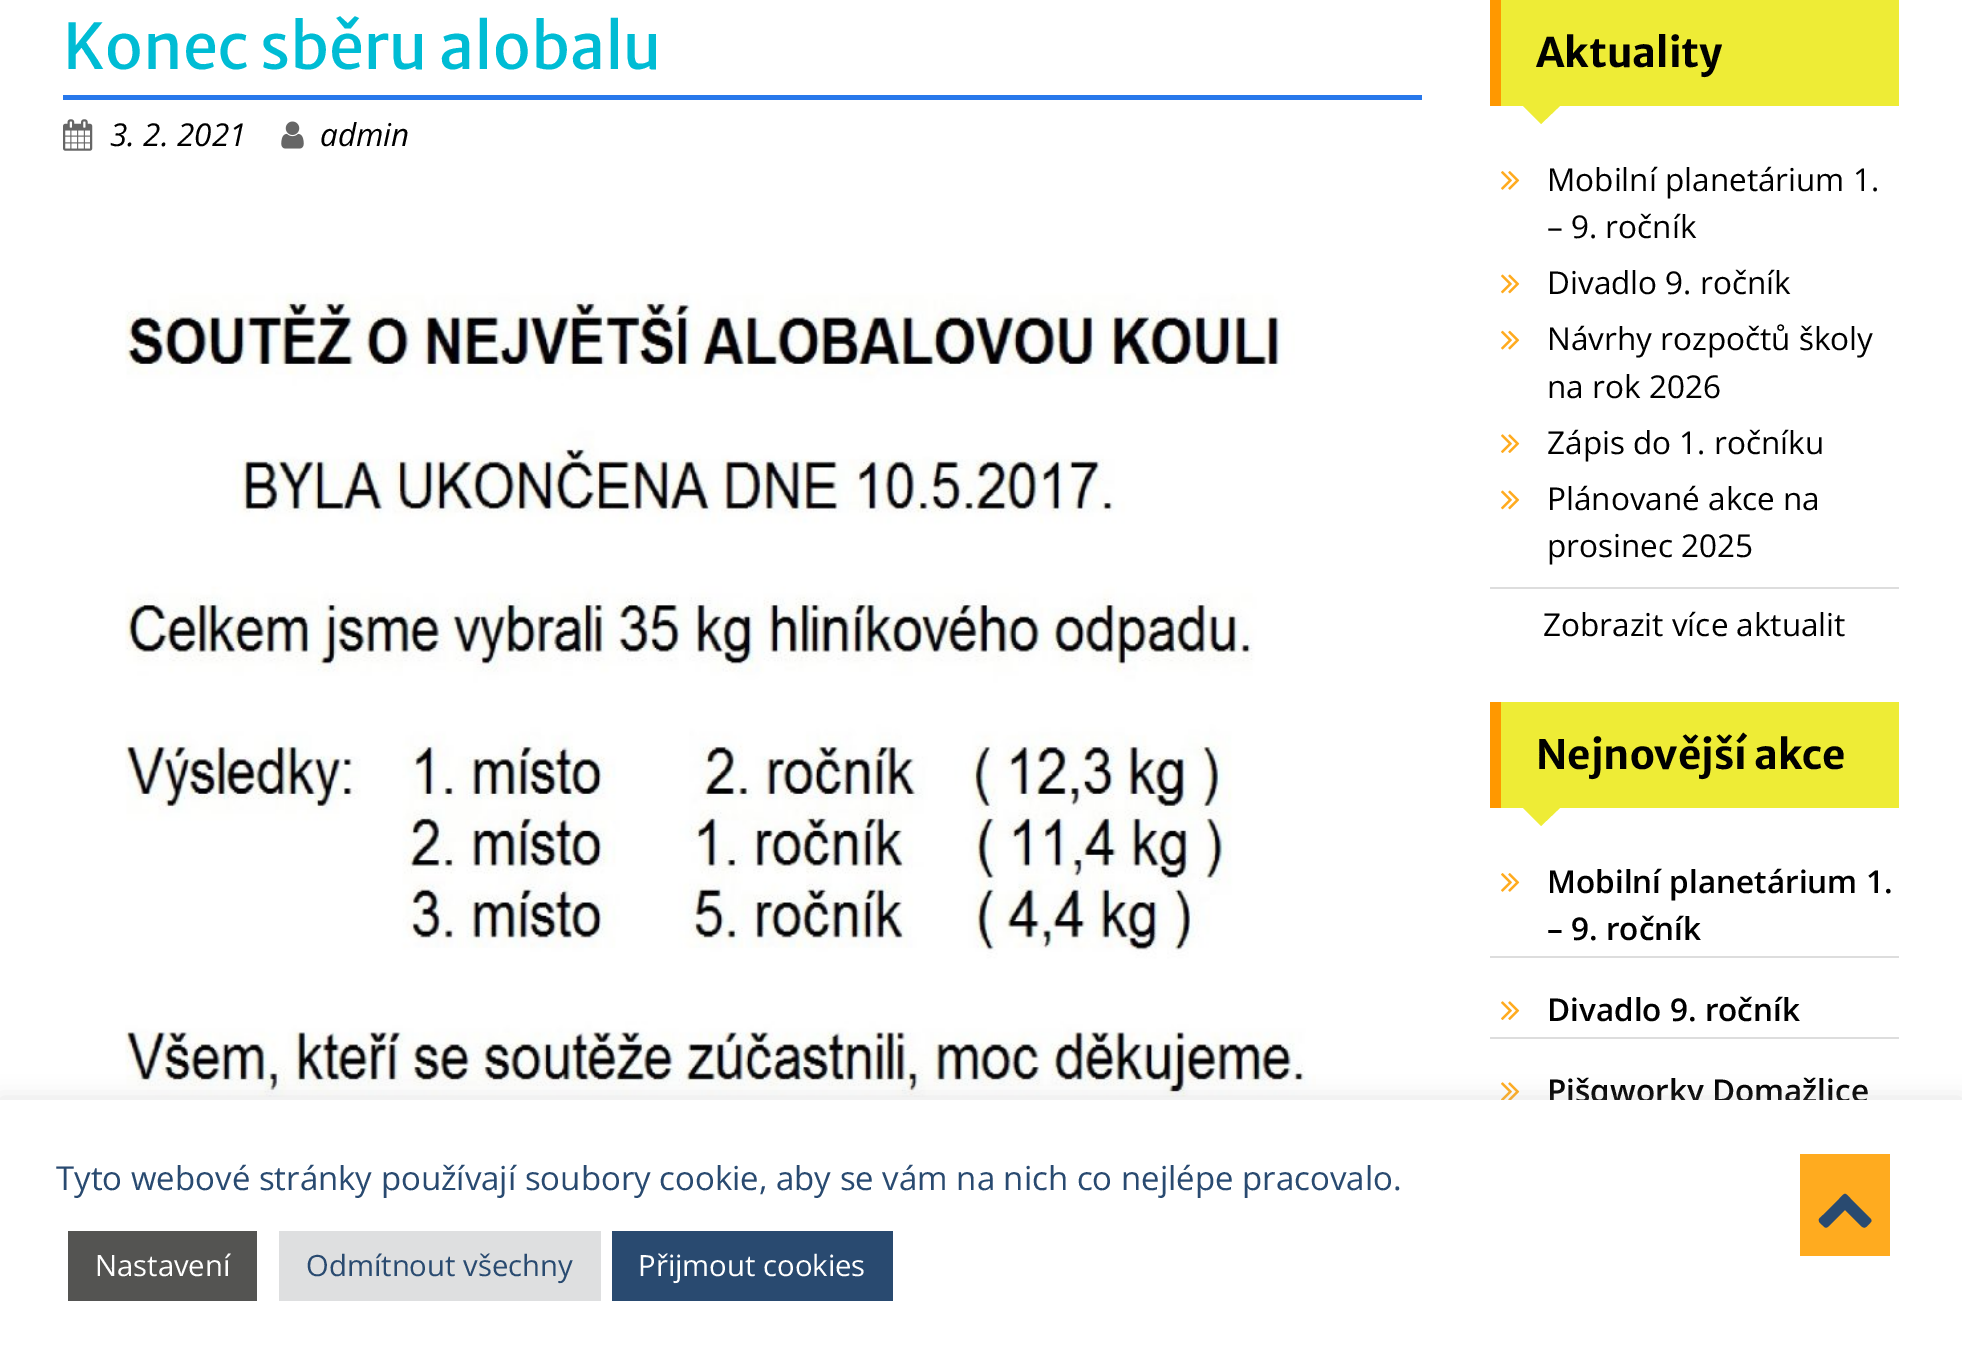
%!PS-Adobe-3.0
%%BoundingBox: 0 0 1962 1367
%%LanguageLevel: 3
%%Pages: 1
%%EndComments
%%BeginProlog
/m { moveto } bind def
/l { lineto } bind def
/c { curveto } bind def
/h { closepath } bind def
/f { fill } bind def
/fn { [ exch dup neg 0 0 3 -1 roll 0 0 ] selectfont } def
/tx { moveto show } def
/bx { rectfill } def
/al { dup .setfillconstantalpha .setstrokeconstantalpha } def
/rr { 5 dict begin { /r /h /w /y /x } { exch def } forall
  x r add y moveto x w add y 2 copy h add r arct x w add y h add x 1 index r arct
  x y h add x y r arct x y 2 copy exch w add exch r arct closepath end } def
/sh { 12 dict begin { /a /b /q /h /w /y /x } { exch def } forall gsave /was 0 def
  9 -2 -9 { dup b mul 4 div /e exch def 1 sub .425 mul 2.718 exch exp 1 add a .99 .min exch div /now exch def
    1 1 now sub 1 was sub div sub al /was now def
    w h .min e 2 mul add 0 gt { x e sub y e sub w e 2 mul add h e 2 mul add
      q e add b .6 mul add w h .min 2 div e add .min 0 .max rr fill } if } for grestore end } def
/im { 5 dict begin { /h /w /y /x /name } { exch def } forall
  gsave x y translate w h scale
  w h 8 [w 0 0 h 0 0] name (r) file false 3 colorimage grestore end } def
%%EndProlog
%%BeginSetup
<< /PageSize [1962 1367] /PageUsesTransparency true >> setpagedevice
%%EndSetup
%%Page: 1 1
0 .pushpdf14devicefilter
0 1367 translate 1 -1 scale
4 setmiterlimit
1 setgray
0 0 1962 1367 bx
0.157 0.471 0.922 setrgbcolor
63 95 1359 5 bx
/MerriweatherSans-Regular 63 fn
0 0.737 0.831 setrgbcolor
(Konec sběru alobalu) 63 69 tx
(image0.raw) 63 119 30 32 im
/OpenSans-Italic 31.5 fn
0 setgray
(3. 2. 2021) 110 146 tx
(image1.raw) 281 121 23 28 im
(admin) 320 146 tx
(image2.raw) 125 293 1191 804 im
0.933 0.925 0.212 setrgbcolor
1501 0 398 106 bx
1 0.596 0 setrgbcolor
1490 0 11 106 bx
/MerriweatherSans-Bold 40.5 fn
0 setgray
(Aktuality) 1536 67 tx
0.933 0.925 0.212 setrgbcolor
1521 104 m 1562 104 l 1541 124 l h f
(image3.raw) 1501 171 19 19 im
/OpenSans-Regular 31.5 fn
0 setgray
(Mobilní planetárium 1.) 1547 191 tx
(– 9. ročník) 1547 238 tx
(image4.raw) 1501 274 19 20 im
(Divadlo 9. ročník) 1547 294 tx
(image5.raw) 1501 330 19 20 im
(Návrhy rozpočtů školy) 1547 350 tx
(na rok 2026) 1547 398 tx
(image6.raw) 1501 434 19 19 im
(Zápis do 1. ročníku) 1547 454 tx
(image4.raw) 1501 490 19 20 im
(Plánované akce na) 1547 510 tx
(prosinec 2025) 1547 557 tx
0.867 setgray
1490 587 409 2 bx
0 setgray
(Zobrazit více aktualit) 1543 636 tx
0.933 0.925 0.212 setrgbcolor
1501 702 398 106 bx
1 0.596 0 setrgbcolor
1490 702 11 106 bx
/MerriweatherSans-Bold 40.5 fn
0 setgray
(Nejnovější akce) 1536 769 tx
0.933 0.925 0.212 setrgbcolor
1521 806 m 1562 806 l 1541 826 l h f
0.867 setgray
1490 956 409 2 bx
(image3.raw) 1501 873 19 19 im
/OpenSans-SemiBold 31.5 fn
0 setgray
(Mobilní planetárium 1.) 1547 893 tx
(– 9. ročník) 1547 940 tx
0.867 setgray
1490 1037 409 2 bx
(image6.raw) 1501 1001 19 19 im
0 setgray
(Divadlo 9. ročník) 1547 1021 tx
(image7.raw) 1501 1082 19 18 im
(Pišqworky Domažlice) 1547 1102 tx
0.675 0.671 0.671 setrgbcolor
0 1098 1962 268 0 11 0.3 sh
1 setgray
0 1100 1962 267 bx
/OpenSans-Regular 33 fn
0.161 0.29 0.439 setrgbcolor
(Tyto webové stránky používají soubory cookie, aby se vám na nich co nejlépe pracovalo.) 56 1190 tx
0.329 0.329 0.322 setrgbcolor
68 1231 189 70 bx
/OpenSans-Regular 29.25 fn
1 setgray
(Nastavení) 95 1276 tx
0.871 0.875 0.878 setrgbcolor
279 1231 322 70 bx
0.161 0.29 0.439 setrgbcolor
(Odmítnout všechny) 306 1276 tx
612 1231 281 70 bx
1 setgray
(Přijmout cookies) 638 1276 tx
1 0.671 0.122 setrgbcolor
1800 1154 90 102 bx
0.161 0.29 0.439 setrgbcolor
1871 1222 m 1865 1228 1865 1230 1859 1224 c 1845 1210 l 1831 1224 l 1825 1230 1826 1228 1820 1223 c 1817 1219 1820 1218 1823 1215 c 1839 1199 l 1846 1192 1844 1192 1851 1199 c 1867 1215 l 1867 1216 1873 1219 1871 1222 c h f
.poppdf14devicefilter showpage
%%EOF
